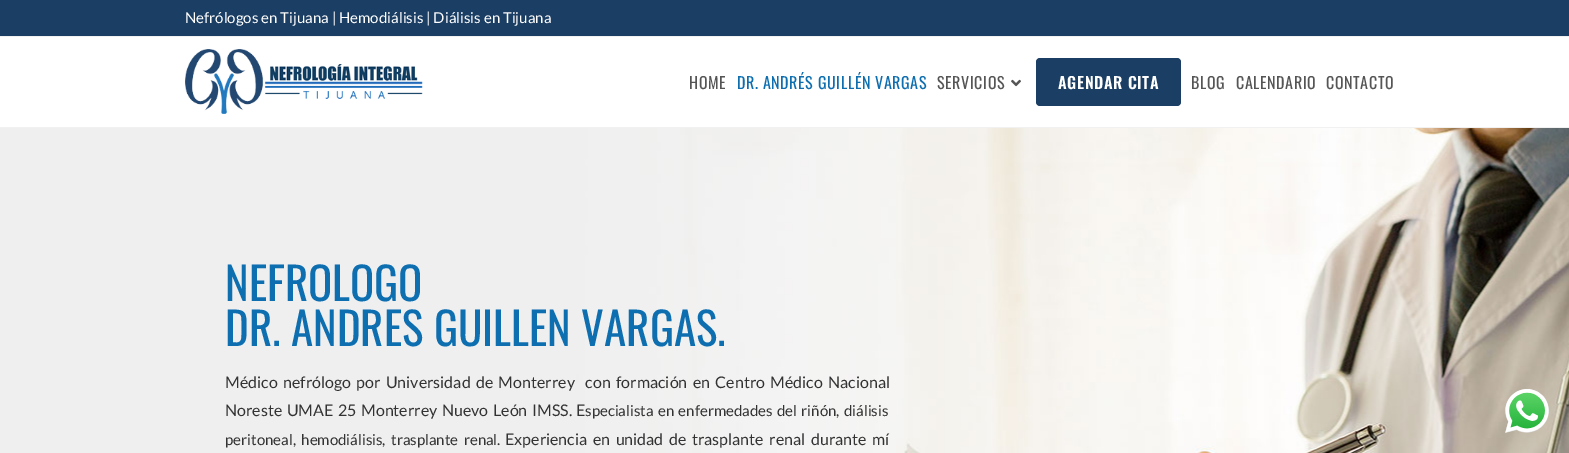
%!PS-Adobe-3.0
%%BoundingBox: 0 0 1569 453
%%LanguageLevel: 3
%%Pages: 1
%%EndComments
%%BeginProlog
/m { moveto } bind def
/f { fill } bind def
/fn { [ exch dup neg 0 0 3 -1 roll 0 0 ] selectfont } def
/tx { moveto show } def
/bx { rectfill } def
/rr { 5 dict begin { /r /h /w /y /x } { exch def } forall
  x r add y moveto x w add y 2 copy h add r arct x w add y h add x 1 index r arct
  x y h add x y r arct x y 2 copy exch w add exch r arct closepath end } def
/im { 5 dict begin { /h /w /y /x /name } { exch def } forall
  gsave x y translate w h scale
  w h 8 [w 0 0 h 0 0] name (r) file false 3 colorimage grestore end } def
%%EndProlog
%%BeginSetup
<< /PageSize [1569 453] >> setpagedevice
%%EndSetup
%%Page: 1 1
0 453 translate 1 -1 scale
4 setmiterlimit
1 setgray
0 0 1569 453 bx
0.106 0.243 0.392 setrgbcolor
0 0 1569 36 bx
0.945 setgray
0 36 1569 1 bx
/Lato-Regular 15 fn
1 setgray
(Nefrólogos en Tijuana | Hemodiálisis | Diálisis en Tijuana) 185 23 tx
0.945 setgray
0 127 1569 1 bx
(image0.raw) 185 49 238 65 im
/Oswald-Regular 16 fn
0.333 setgray
689 89 m 0.6 0 (HOME) ashow
0.051 0.431 0.69 setrgbcolor
737 89 m 0.6 0 (DR. ANDRÉS GUILLÉN VARGAS) ashow
0.333 setgray
937 89 m 0.6 0 (SERVICIOS) ashow
(image1.raw) 1011 79 10 8 im
0.106 0.243 0.392 setrgbcolor
1036 58 145 48 4 rr f
/Oswald-SemiBold 16 fn
1 setgray
1058 89 m 0.6 0 (AGENDAR CITA) ashow
/Oswald-Regular 16 fn
0.333 setgray
1191 89 m 0.6 0 (BLOG) ashow
1236 89 m 0.6 0 (CALENDARIO) ashow
1326 89 m 0.6 0 (CONTACTO) ashow
(image2.raw) 0 128 1569 325 im
/Oswald-Regular 45 fn
0.051 0.431 0.69 setrgbcolor
(NEFROLOGO) 225 301 tx
(DR. ANDRES GUILLEN VARGAS.) 225 346 tx
/Lato-Regular 16 fn
0.2 setgray
225 388 m 2.25 0 32 (Médico nefrólogo por Universidad de Monterrey  con formación en Centro Médico Nacional) widthshow
225 416 m 1.5 0 32 (Noreste UMAE 25 Monterrey Nuevo León IMSS. E) widthshow
/Lato-Regular 15 fn
585 416 m 1.5 0 32 (specialista en enfermedades del riñón, diálisis) widthshow
225 445 m 2.5 0 32 (peritoneal, hemodiálisis, trasplante renal.) widthshow
/Lato-Regular 16 fn
505 445 m 2.5 0 32 (Experiencia en unidad de trasplante renal durante mí) widthshow
(image3.raw) 1505 389 44 44 im
showpage
%%EOF
